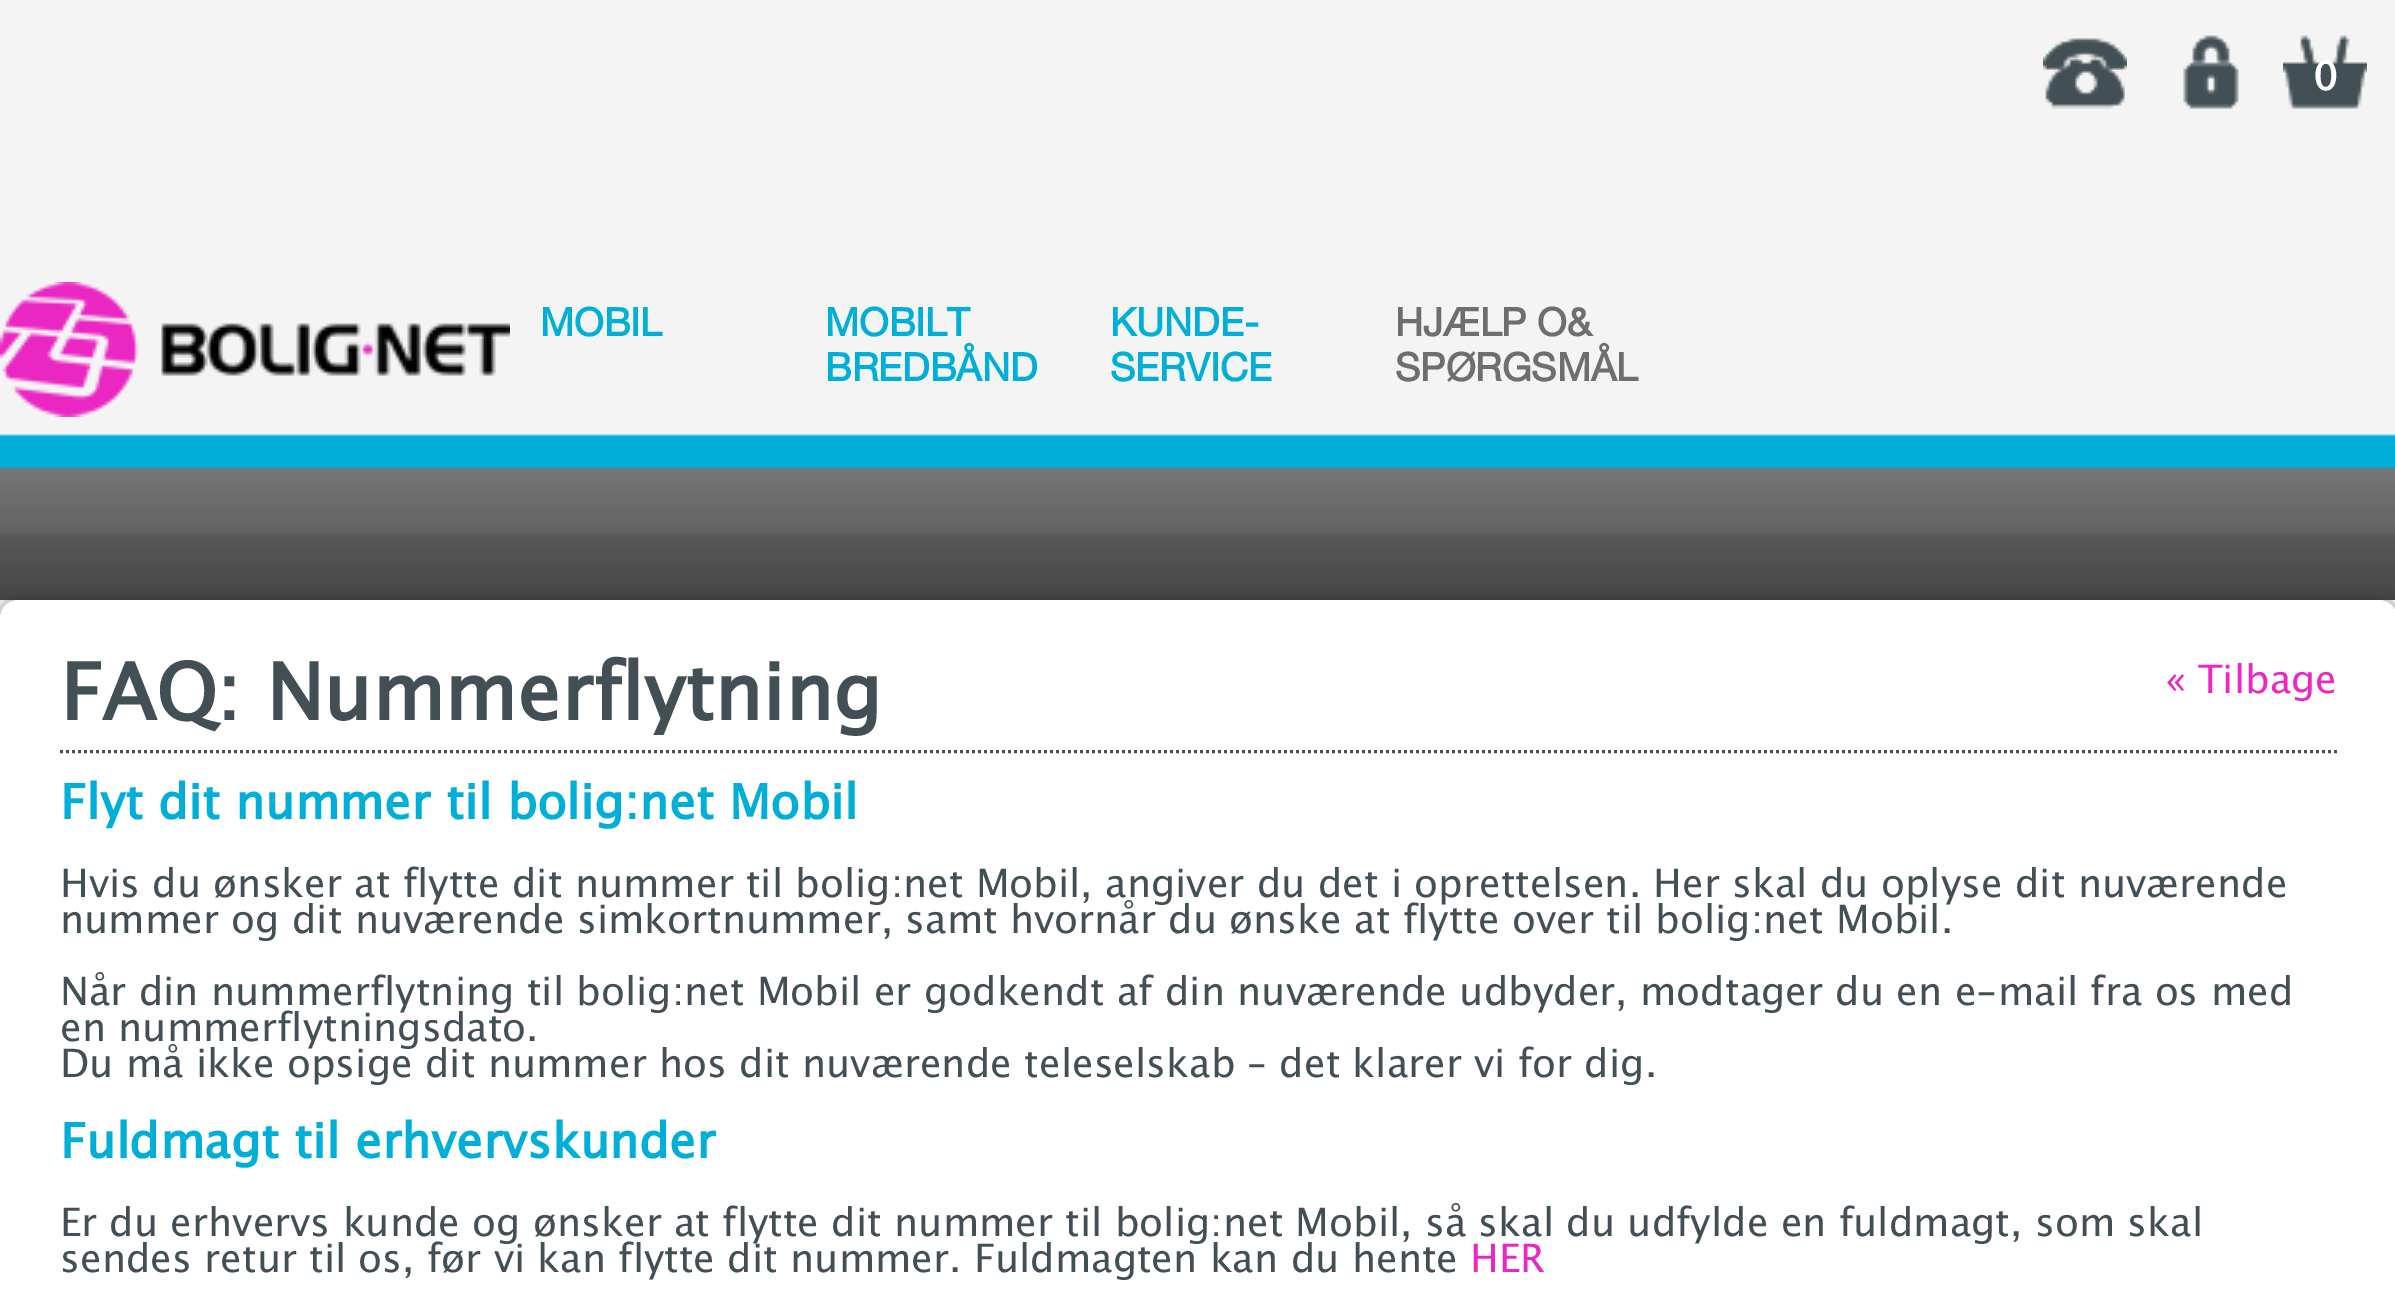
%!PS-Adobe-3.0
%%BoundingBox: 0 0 2395 1298
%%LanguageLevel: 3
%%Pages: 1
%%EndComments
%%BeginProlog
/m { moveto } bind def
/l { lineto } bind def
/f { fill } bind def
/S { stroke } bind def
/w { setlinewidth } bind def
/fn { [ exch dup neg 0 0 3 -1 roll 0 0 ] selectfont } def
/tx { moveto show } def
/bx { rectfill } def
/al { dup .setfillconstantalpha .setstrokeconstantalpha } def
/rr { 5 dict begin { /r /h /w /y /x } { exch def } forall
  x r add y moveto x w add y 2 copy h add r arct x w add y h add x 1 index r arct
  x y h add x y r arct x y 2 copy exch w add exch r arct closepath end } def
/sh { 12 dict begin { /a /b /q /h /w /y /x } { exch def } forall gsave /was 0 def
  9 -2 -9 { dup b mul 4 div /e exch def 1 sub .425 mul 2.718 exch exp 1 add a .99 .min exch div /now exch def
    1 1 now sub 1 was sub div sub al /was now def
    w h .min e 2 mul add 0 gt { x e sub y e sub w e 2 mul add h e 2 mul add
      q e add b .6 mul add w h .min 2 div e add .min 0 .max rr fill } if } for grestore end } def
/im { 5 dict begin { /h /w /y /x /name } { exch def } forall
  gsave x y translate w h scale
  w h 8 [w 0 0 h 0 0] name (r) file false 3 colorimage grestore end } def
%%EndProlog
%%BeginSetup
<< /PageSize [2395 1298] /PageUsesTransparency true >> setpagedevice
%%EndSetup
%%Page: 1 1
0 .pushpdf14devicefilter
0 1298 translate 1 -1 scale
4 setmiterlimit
1 setgray
0 0 2395 1298 bx
(image0.raw) 0 0 2395 600 im
(image1.raw) 2043 38 84 71 im
(image2.raw) 2183 35 56 74 im
(image3.raw) 2283 35 84 74 im
/LucidaGrande-Bold 39 fn
(0) 2313 90 tx
(image4.raw) 0 282 510 135 im
/HelveticaNeue-Bold 39 fn
0 0.686 0.843 setrgbcolor
(MOBIL) 540 336 tx
(MOBILT) 825 336 tx
(BREDBÅND) 825 381 tx
(KUNDE-) 1110 336 tx
(SERVICE) 1110 381 tx
0.431 setgray
(HJÆLP O&) 1395 336 tx
(SPØRGSMÅL) 1395 381 tx
0.196 setgray
0 600 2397 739 18 7.5 0.75 sh
1 setgray
0 600 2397 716 18 rr f
0.259 0.31 0.329 setrgbcolor
3 w
[3 3] 0 setdash
60 751.5 m 2337 751.5 l S
/LucidaGrande-Bold 78 fn
(FAQ: Nummerflytning) 60 720 tx
/LucidaGrande-Regular 39 fn
0.918 0.153 0.761 setrgbcolor
(« Tilbage) 2165 693 tx
/LucidaGrande-Bold 48 fn
0 0.686 0.843 setrgbcolor
(Flyt dit nummer til bolig:net Mobil) 60 819 tx
/LucidaGrande-Regular 39 fn
0.259 0.31 0.329 setrgbcolor
(Hvis du ønsker at flytte dit nummer til bolig:net Mobil, angiver du det i oprettelsen. Her skal du oplyse dit nuværende) 60 897 tx
(nummer og dit nuværende simkortnummer, samt hvornår du ønske at flytte over til bolig:net Mobil.) 60 933 tx
(Når din nummerflytning til bolig:net Mobil er godkendt af din nuværende udbyder, modtager du en e-mail fra os med) 60 1005 tx
(en nummerflytningsdato.) 60 1041 tx
(Du må ikke opsige dit nummer hos dit nuværende teleselskab – det klarer vi for dig.) 60 1077 tx
/LucidaGrande-Bold 48 fn
0 0.686 0.843 setrgbcolor
(Fuldmagt til erhvervskunder) 60 1158 tx
/LucidaGrande-Regular 39 fn
0.259 0.31 0.329 setrgbcolor
(Er du erhvervs kunde og ønsker at flytte dit nummer til bolig:net Mobil, så skal du udfylde en fuldmagt, som skal) 60 1236 tx
(sendes retur til os, før vi kan flytte dit nummer. Fuldmagten kan du hente) 60 1272 tx
0.918 0.153 0.761 setrgbcolor
(HER) 1470 1272 tx
.poppdf14devicefilter showpage
%%EOF
